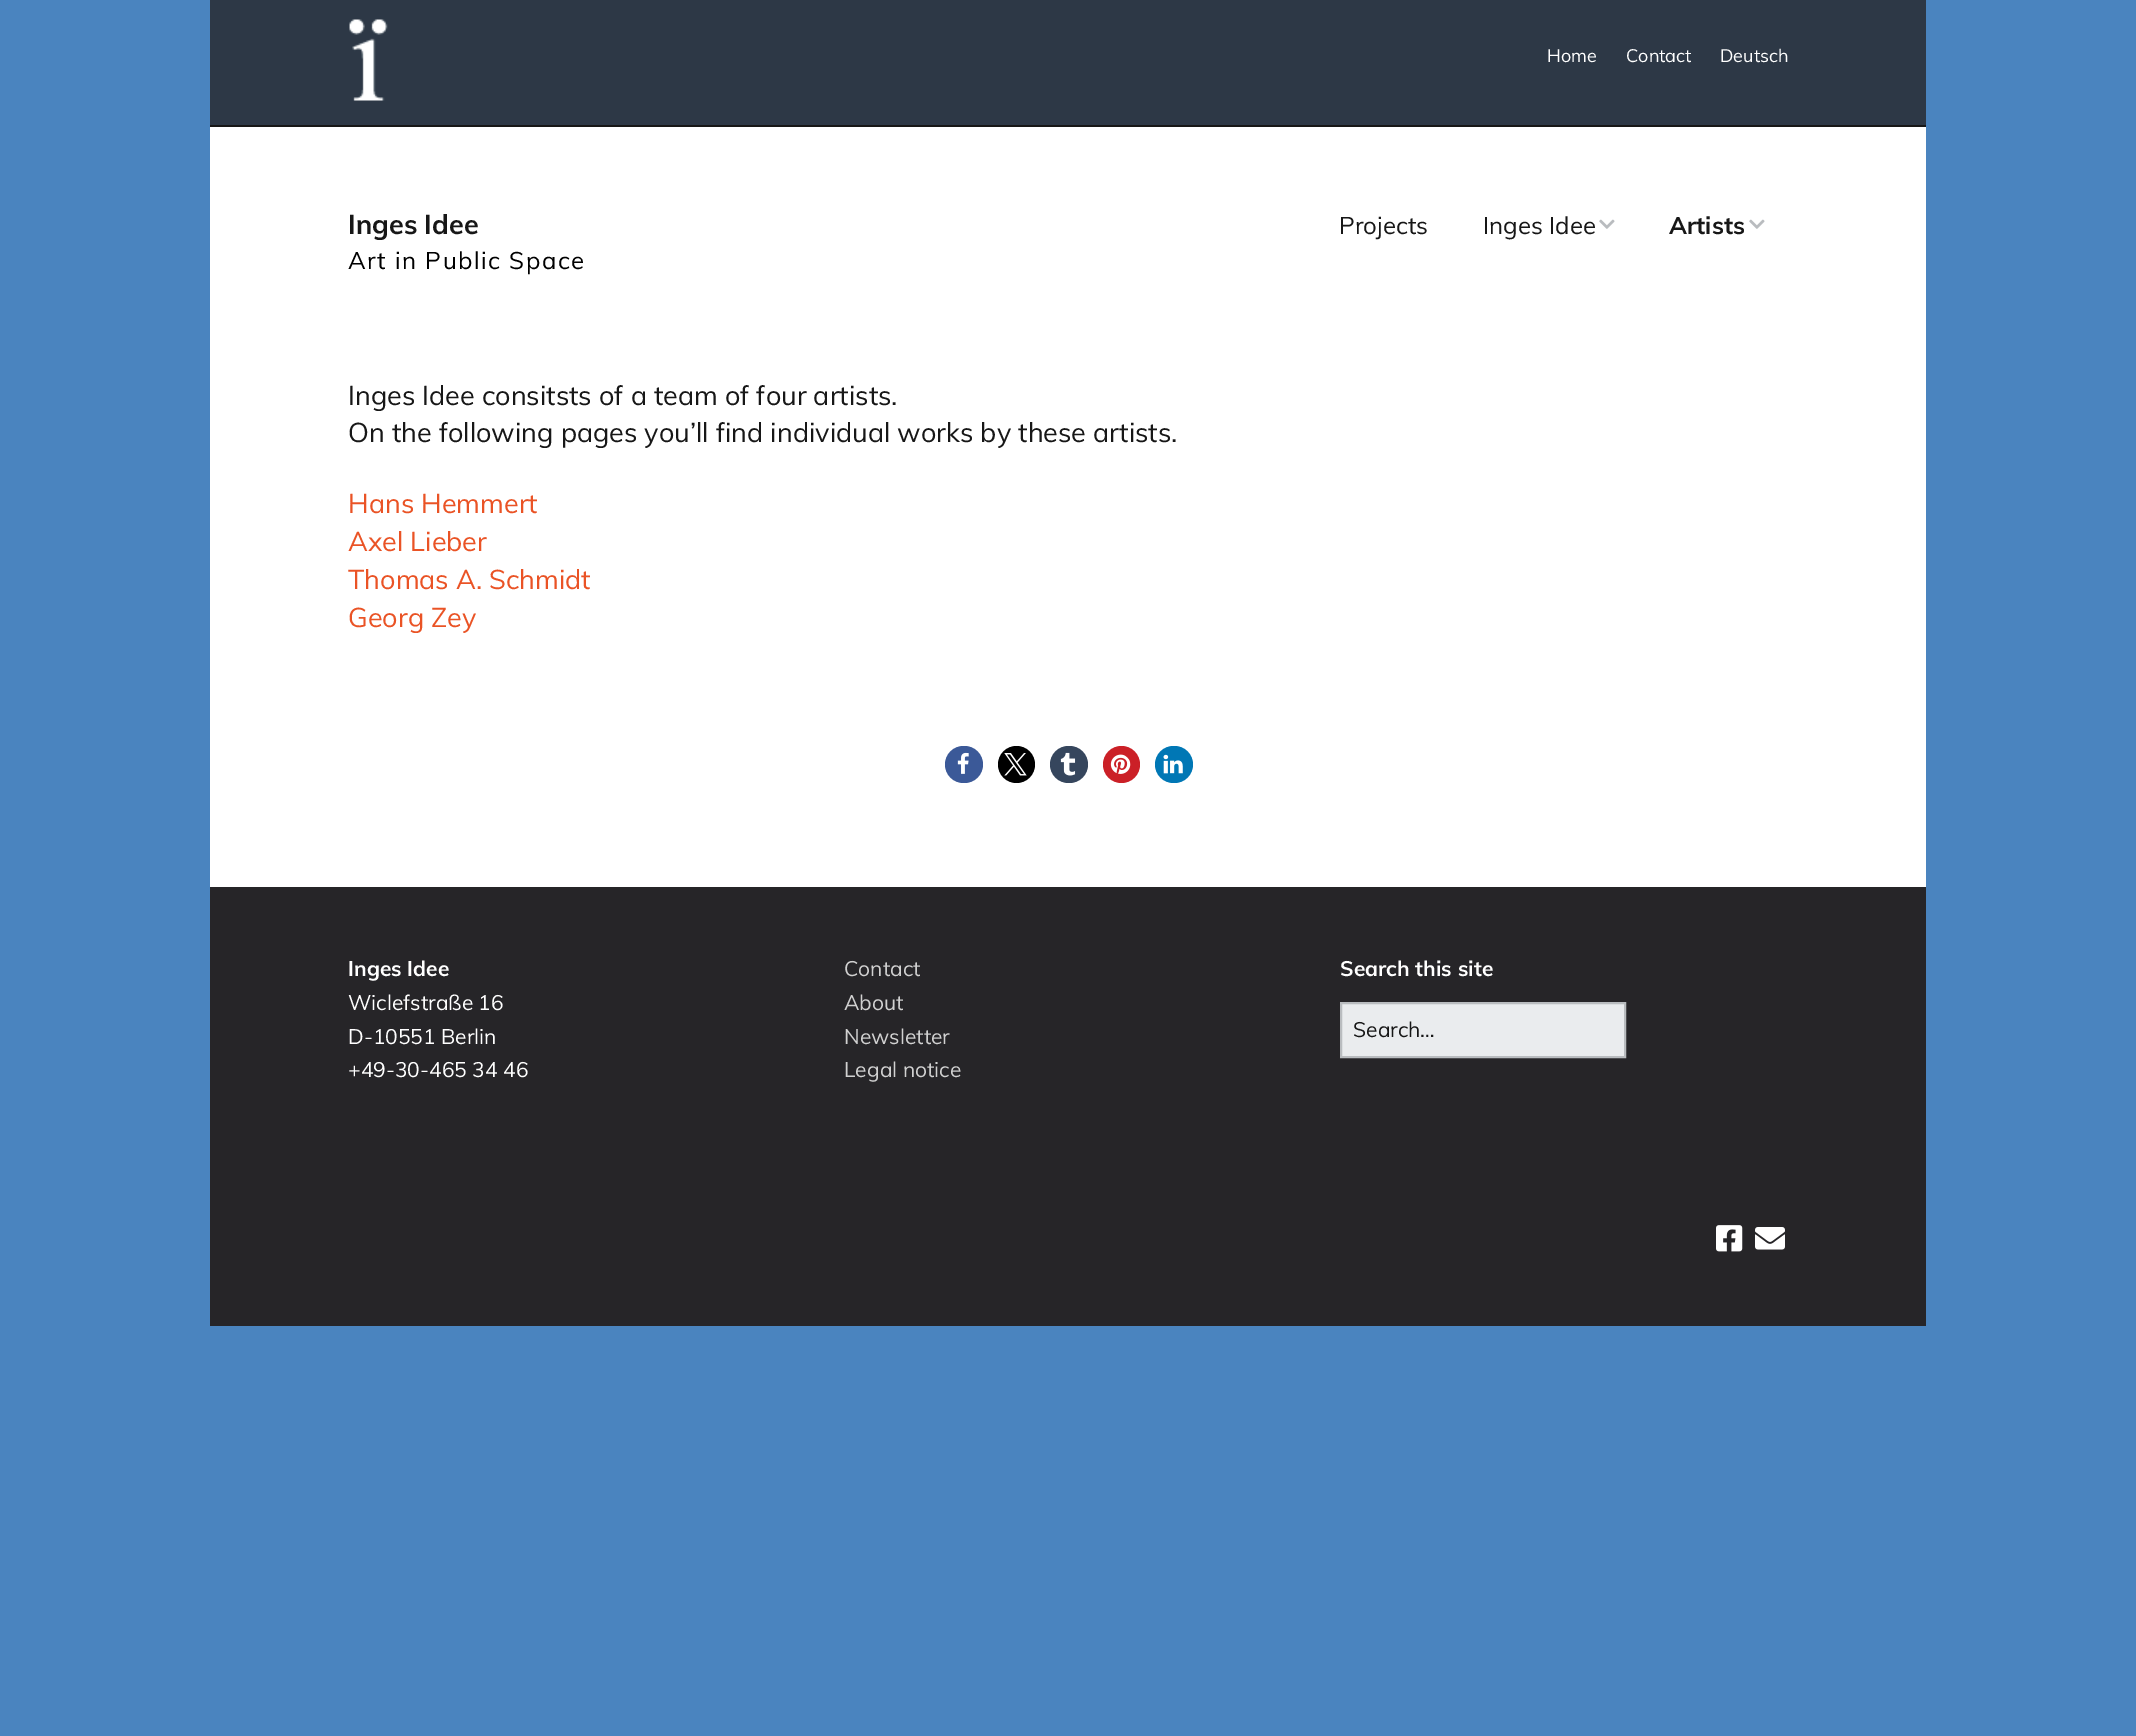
%!PS-Adobe-3.0
%%BoundingBox: 0 0 2136 1736
%%LanguageLevel: 3
%%Pages: 1
%%EndComments
%%BeginProlog
/m { moveto } bind def
/l { lineto } bind def
/h { closepath } bind def
/f { fill } bind def
/S { stroke } bind def
/q { gsave } bind def
/Q { grestore } bind def
/w { setlinewidth } bind def
/fn { [ exch dup neg 0 0 3 -1 roll 0 0 ] selectfont } def
/tx { moveto show } def
/bx { rectfill } def
/ci { newpath 0 360 arc closepath } def
/rr { 5 dict begin { /r /h /w /y /x } { exch def } forall
  x r add y moveto x w add y 2 copy h add r arct x w add y h add x 1 index r arct
  x y h add x y r arct x y 2 copy exch w add exch r arct closepath end } def
/im { 5 dict begin { /h /w /y /x /name } { exch def } forall
  gsave x y translate w h scale
  w h 8 [w 0 0 h 0 0] name (r) file false 3 colorimage grestore end } def
%%EndProlog
%%BeginSetup
<< /PageSize [2136 1736] >> setpagedevice
%%EndSetup
%%Page: 1 1
0 1736 translate 1 -1 scale
4 setmiterlimit
0.29 0.518 0.749 setrgbcolor
0 0 2136 1736 bx
0.176 0.22 0.275 setrgbcolor
210 0 1716 125 bx
(image0.raw) 349 19 39 82 im
0.09 setgray
210 125 1716 2 bx
/Muli-Regular 18 fn
1 setgray
(Home) 1547 62 tx
(Contact) 1626 62 tx
(Deutsch) 1720 62 tx
210 127 1716 760 bx
/Muli-Bold 27 fn
0.09 setgray
(Inges Idee) 348 234 tx
/Muli-Regular 24 fn
0 setgray
348 269 m 1.5 0 (Art in Public Space) ashow
0.09 setgray
(Projects) 1339 234 tx
(Inges Idee) 1483 234 tx
(image1.raw) 1599 219 16 10 im
/Muli-Bold 24 fn
(Artists) 1669 234 tx
(image1.raw) 1749 219 16 10 im
/Muli-Regular 27 fn
(Inges Idee consitsts of a team of four artists.) 348 405 tx
(On the following pages you’ll find individual works by these artists.) 348 442 tx
0.918 0.325 0.145 setrgbcolor
(Hans Hemmert) 348 513 tx
(Axel Lieber) 348 551 tx
(Thomas A. Schmidt) 348 589 tx
(Georg Zey) 348 627 tx
0.231 0.349 0.596 setrgbcolor
945 746 38 37 18.5 rr f
(image2.raw) 957 752 12 22 im
0 setgray
1016.5 764.5 18.5 ci f
(image3.raw) 1004 753 23 23 im
0.212 0.275 0.365 setrgbcolor
1050 746 38 37 18.5 rr f
(image4.raw) 1060 752 16 24 im
0.796 0.125 0.153 setrgbcolor
1121.5 764.5 18.5 ci f
(image5.raw) 1110 754 21 20 im
0 0.467 0.71 setrgbcolor
1155 746 38 37 18.5 rr f
(image6.raw) 1163 754 20 20 im
0.149 0.145 0.157 setrgbcolor
210 887 1716 439 bx
/Muli-Bold 21 fn
1 setgray
(Inges Idee) 348 976 tx
/Muli-Regular 21 fn
(Wiclefstraße 16) 348 1010 tx
(D-10551 Berlin) 348 1044 tx
(+49-30-465 34 46) 348 1077 tx
0.82 setgray
(Contact) 844 976 tx
(About) 844 1010 tx
(Newsletter) 844 1044 tx
(Legal notice) 844 1077 tx
/Muli-Bold 21 fn
1 setgray
(Search this site) 1340 976 tx
0.918 0.925 0.933 setrgbcolor
1341 1003 m 1625 1003 l 1625 1057 l 1341 1057 l h q f Q
0.725 0.737 0.749 setrgbcolor
2 w
S
/Muli-Regular 21 fn
0.09 setgray
(Search…) 1353 1037 tx
(image7.raw) 1716 1225 27 27 im
(image8.raw) 1755 1227 30 23 im
showpage
%%EOF
